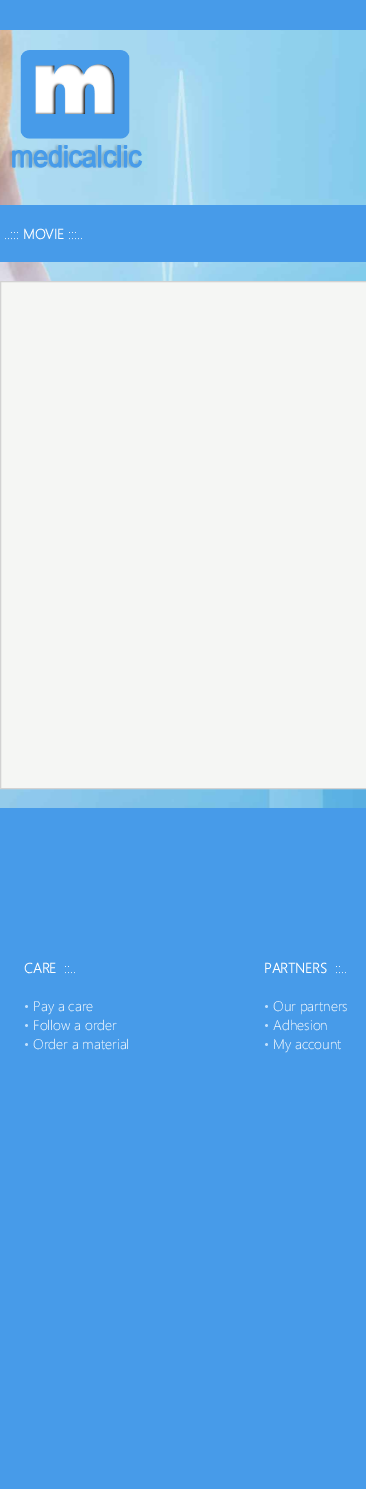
%!PS-Adobe-3.0
%%BoundingBox: 0 0 366 1489
%%LanguageLevel: 3
%%Pages: 1
%%EndComments
%%BeginProlog
/m { moveto } bind def
/l { lineto } bind def
/h { closepath } bind def
/f { fill } bind def
/S { stroke } bind def
/q { gsave } bind def
/Q { grestore } bind def
/fn { [ exch dup neg 0 0 3 -1 roll 0 0 ] selectfont } def
/tx { moveto show } def
/bx { rectfill } def
/im { 5 dict begin { /h /w /y /x /name } { exch def } forall
  gsave x y translate w h scale
  w h 8 [w 0 0 h 0 0] name (r) file false 3 colorimage grestore end } def
%%EndProlog
%%BeginSetup
<< /PageSize [366 1489] >> setpagedevice
%%EndSetup
%%Page: 1 1
0 1489 translate 1 -1 scale
4 setmiterlimit
0.278 0.608 0.914 setrgbcolor
0 0 366 1489 bx
(image0.raw) 0 30 366 778 im
(image1.raw) 8 50 135 119 im
0 205 366 57 bx
/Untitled-Regular 14 fn
1 setgray
(..:::) 4 239 tx
/Untitled-Bold 14 fn
(MOVIE) 23 239 tx
/Untitled-Regular 14 fn
(:::..) 68 239 tx
0.961 0.965 0.957 setrgbcolor
0.5 281.5 m 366.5 281.5 l 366.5 788.5 l 0.5 788.5 l h q f Q
0.824 setgray
S
/Untitled-Bold 14 fn
1 setgray
(CARE) 24 973 tx
/Untitled-Regular 14 fn
(::..) 64 973 tx
/Untitled-Regular 13 fn
0.753 0.875 0.988 setrgbcolor
(•) 24 1011 tx
/Untitled-Regular 14 fn
1 setgray
(Pay a care) 33 1011 tx
/Untitled-Regular 13 fn
0.753 0.875 0.988 setrgbcolor
(•) 24 1030 tx
/Untitled-Regular 14 fn
1 setgray
(Follow a order) 33 1030 tx
/Untitled-Regular 13 fn
0.753 0.875 0.988 setrgbcolor
(•) 24 1049 tx
/Untitled-Regular 14 fn
1 setgray
(Order a material) 33 1049 tx
/Untitled-Bold 14 fn
(PARTNERS) 264 973 tx
/Untitled-Regular 14 fn
(::..) 335 973 tx
/Untitled-Regular 13 fn
0.753 0.875 0.988 setrgbcolor
(•) 264 1011 tx
/Untitled-Regular 14 fn
1 setgray
(Our partners) 273 1011 tx
/Untitled-Regular 13 fn
0.753 0.875 0.988 setrgbcolor
(•) 264 1030 tx
/Untitled-Regular 14 fn
1 setgray
(Adhesion) 273 1030 tx
/Untitled-Regular 13 fn
0.753 0.875 0.988 setrgbcolor
(•) 264 1049 tx
/Untitled-Regular 14 fn
1 setgray
(My account) 273 1049 tx
showpage
%%EOF
